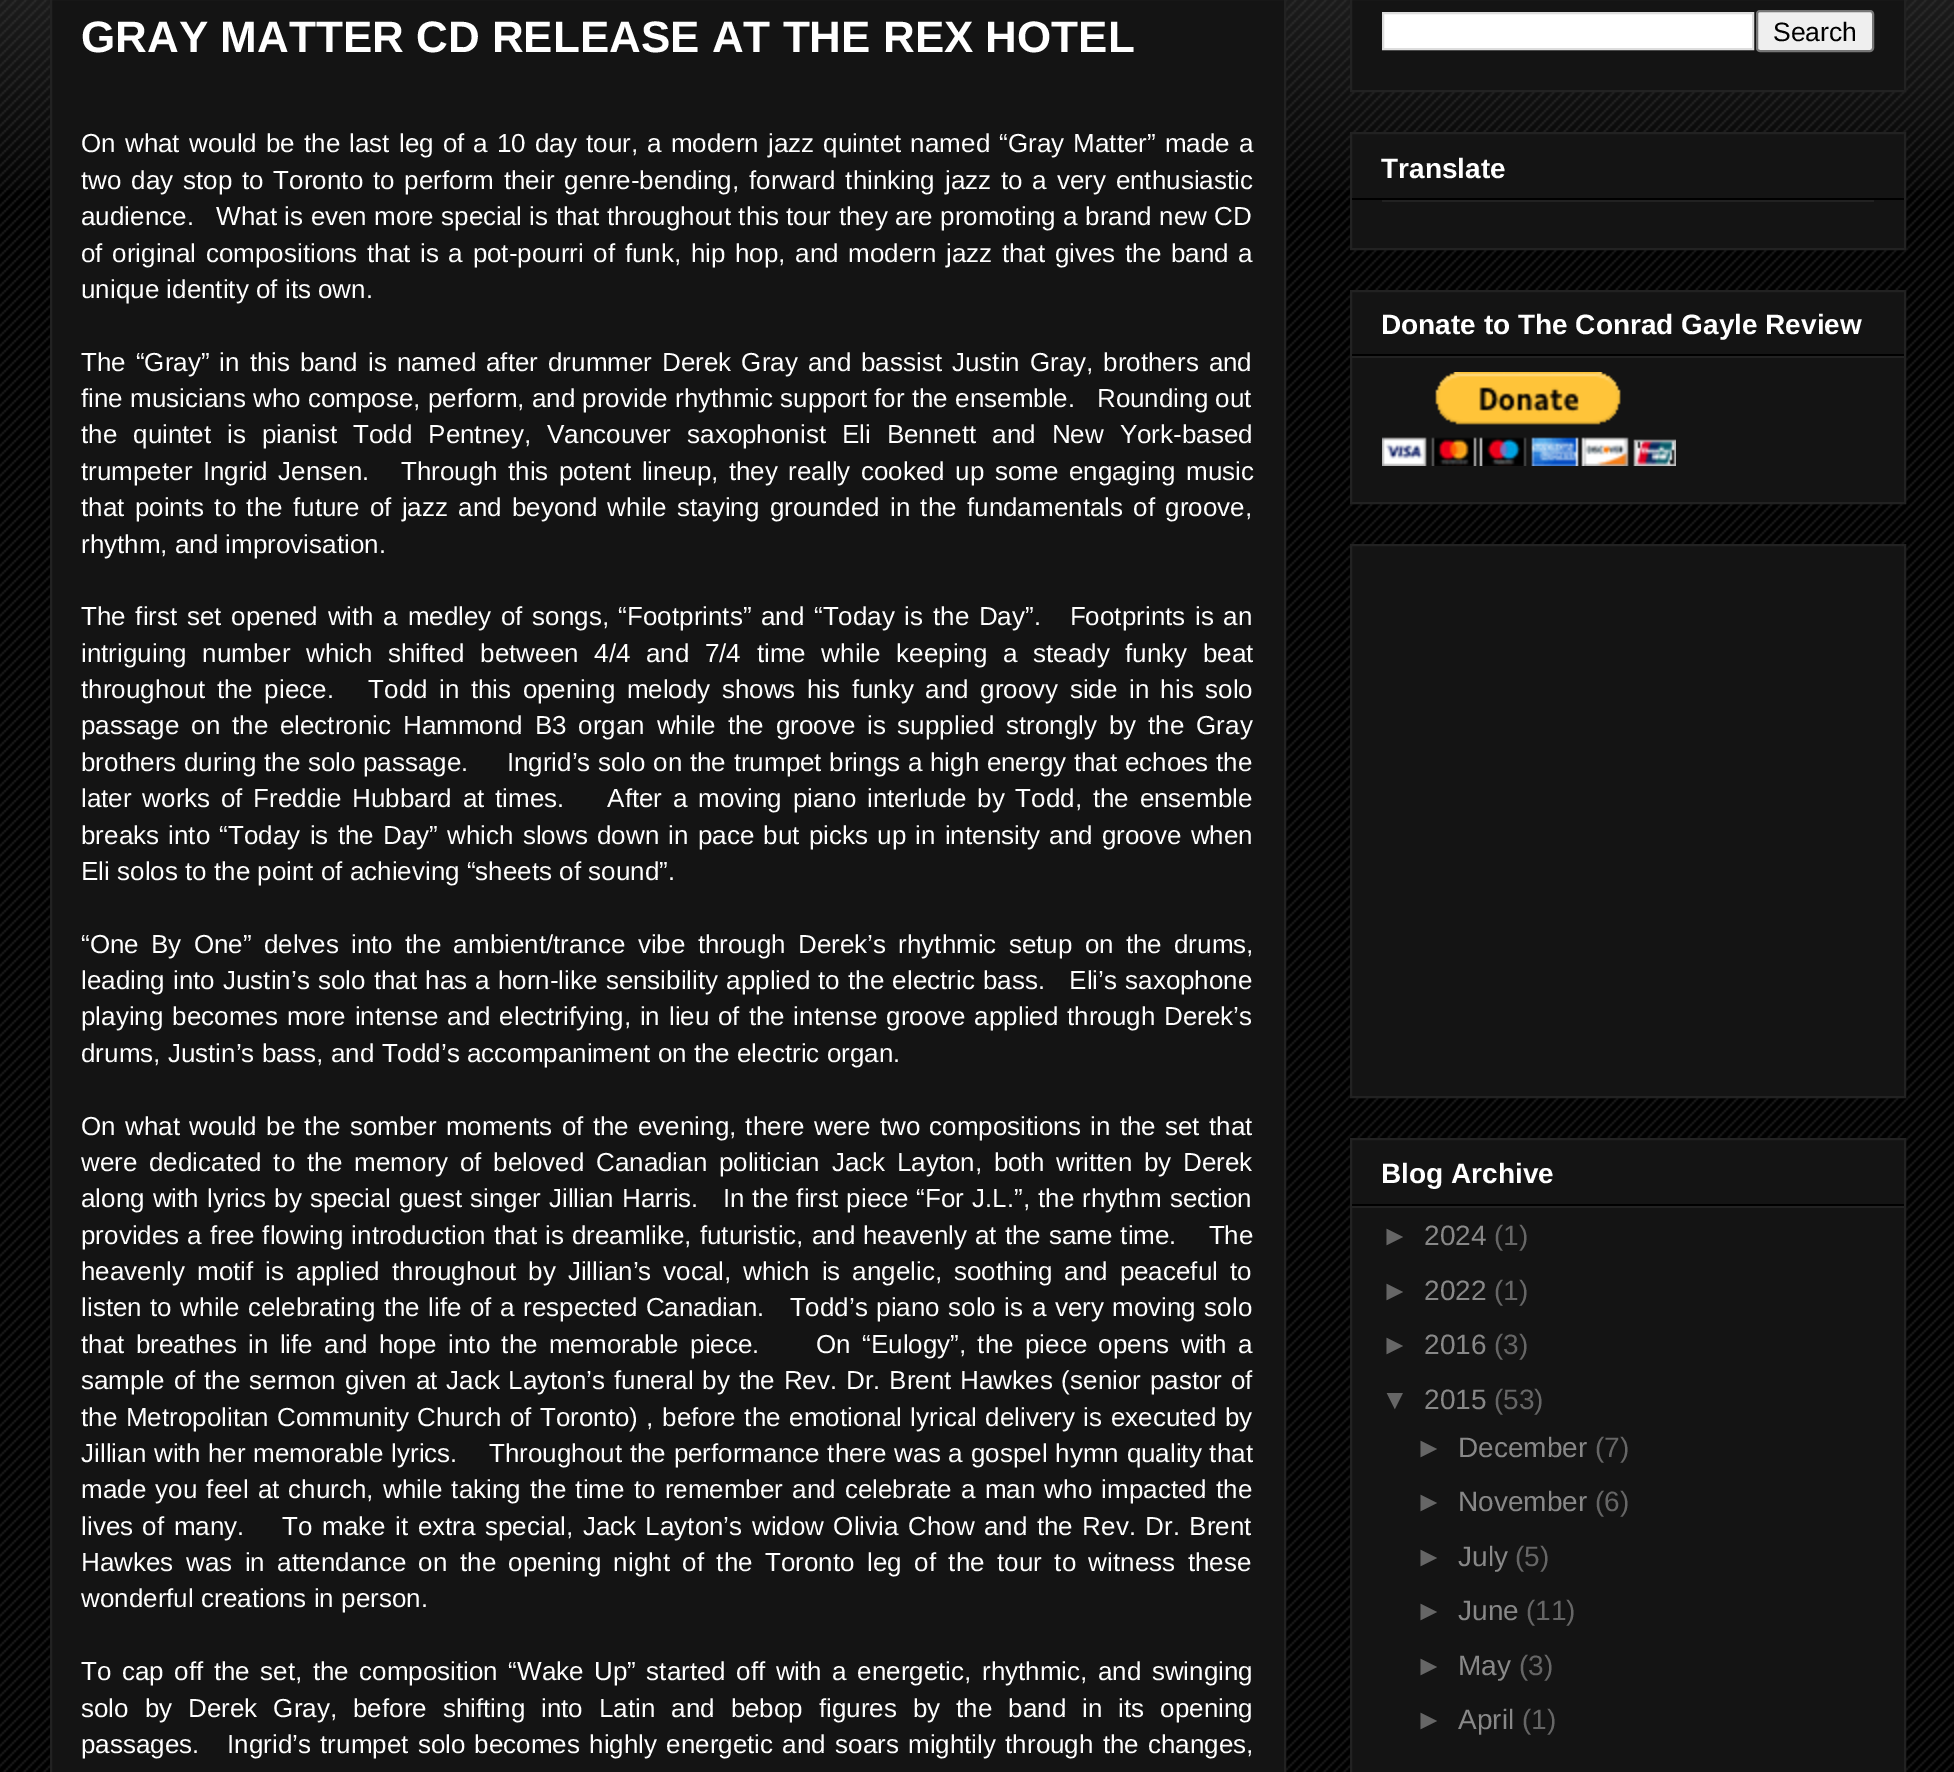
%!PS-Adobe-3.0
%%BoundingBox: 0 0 1954 1772
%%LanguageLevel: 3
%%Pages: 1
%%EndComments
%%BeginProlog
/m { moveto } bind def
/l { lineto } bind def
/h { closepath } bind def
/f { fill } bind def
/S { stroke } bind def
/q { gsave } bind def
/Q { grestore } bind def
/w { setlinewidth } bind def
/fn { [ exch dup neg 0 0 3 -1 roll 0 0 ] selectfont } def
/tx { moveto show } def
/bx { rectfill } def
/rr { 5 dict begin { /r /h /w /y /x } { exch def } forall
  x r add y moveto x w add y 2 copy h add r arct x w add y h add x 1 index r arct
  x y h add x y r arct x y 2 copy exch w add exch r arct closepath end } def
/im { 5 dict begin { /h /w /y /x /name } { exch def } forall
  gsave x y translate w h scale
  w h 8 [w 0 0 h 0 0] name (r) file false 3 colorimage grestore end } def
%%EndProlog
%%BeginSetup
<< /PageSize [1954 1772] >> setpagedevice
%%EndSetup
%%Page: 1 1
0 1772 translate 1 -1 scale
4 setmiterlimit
0 setgray
0 0 1954 1772 bx
(image0.raw) 0 0 1954 1772 im
(image1.raw) 0 0 1954 190 im
0.078 setgray
51 -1 m 1285 -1 l 1285 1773 l 51 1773 l h q f Q
0.133 setgray
2 w
S
/LiberationSans-Bold 44 fn
1 setgray
(GRAY MATTER CD RELEASE AT THE REX HOTEL) 81 52 tx
/LiberationSans-Regular 26 fn
81 152 m 1.9 0 32 (On what would be the last leg of a 10 day tour, a modern jazz quintet named “Gray Matter” made a) widthshow
81 189 m 2.6 0 32 (two day stop to Toronto to perform their genre-bending, forward thinking jazz to a very enthusiastic) widthshow
81 225 m 0.25 0 32 (audience.   What is even more special is that throughout this tour they are promoting a brand new CD) widthshow
81 262 m 2.4 0 32 (of original compositions that is a pot-pourri of funk, hip hop, and modern jazz that gives the band a) widthshow
(unique identity of its own.) 81 298 tx
81 371 m 2.75 0 32 (The “Gray” in this band is named after drummer Derek Gray and bassist Justin Gray, brothers and) widthshow
(fine musicians who compose, perform, and provide rhythmic support for the ensemble.   Rounding out) 81 407 tx
81 443 m 8.75 0 32 (the quintet is pianist Todd Pentney, Vancouver saxophonist Eli Bennett and New York-based) widthshow
81 480 m 3.25 0 32 (trumpeter Ingrid Jensen.   Through this potent lineup, they really cooked up some engaging music) widthshow
81 516 m 3.1 0 32 (that points to the future of jazz and beyond while staying grounded in the fundamentals of groove,) widthshow
(rhythm, and improvisation.) 81 553 tx
81 625 m 2.4 0 32 (The first set opened with a medley of songs, “Footprints” and “Today is the Day”.   Footprints is an) widthshow
81 662 m 8.4 0 32 (intriguing number which shifted between 4/4 and 7/4 time while keeping a steady funky beat) widthshow
81 698 m 4.25 0 32 (throughout the piece.   Todd in this opening melody shows his funky and groovy side in his solo) widthshow
81 734 m 4.6 0 32 (passage on the electronic Hammond B3 organ while the groove is supplied strongly by the Gray) widthshow
81 771 m 0.4 0 32 (brothers during the solo passage.     Ingrid’s solo on the trumpet brings a high energy that echoes the) widthshow
81 807 m 3.5 0 32 (later works of Freddie Hubbard at times.    After a moving piano interlude by Todd, the ensemble) widthshow
81 844 m 2 0 32 (breaks into “Today is the Day” which slows down in pace but picks up in intensity and groove when) widthshow
(Eli solos to the point of achieving “sheets of sound”.) 81 880 tx
81 953 m 5 0 32 (“One By One” delves into the ambient/trance vibe through Derek’s rhythmic setup on the drums,) widthshow
81 989 m 0.9 0 32 (leading into Justin’s solo that has a horn-like sensibility applied to the electric bass.   Eli’s saxophone) widthshow
81 1025 m 1.6 0 32 (playing becomes more intense and electrifying, in lieu of the intense groove applied through Derek’s) widthshow
(drums, Justin’s bass, and Todd’s accompaniment on the electric organ.) 81 1062 tx
81 1135 m 2 0 32 (On what would be the somber moments of the evening, there were two compositions in the set that) widthshow
81 1171 m 4.4 0 32 (were dedicated to the memory of beloved Canadian politician Jack Layton, both written by Derek) widthshow
81 1207 m 0.8 0 32 (along with lyrics by special guest singer Jillian Harris.   In the first piece “For J.L.”, the rhythm section) widthshow
81 1244 m 0.75 0 32 (provides a free flowing introduction that is dreamlike, futuristic, and heavenly at the same time.    The) widthshow
81 1280 m 4.75 0 32 (heavenly motif is applied throughout by Jillian’s vocal, which is angelic, soothing and peaceful to) widthshow
81 1316 m 1.25 0 32 (listen to while celebrating the life of a respected Canadian.   Todd’s piano solo is a very moving solo) widthshow
81 1353 m 4.1 0 32 (that breathes in life and hope into the memorable piece.     On “Eulogy”, the piece opens with a) widthshow
81 1389 m 1.6 0 32 (sample of the sermon given at Jack Layton’s funeral by the Rev. Dr. Brent Hawkes \(senior pastor of) widthshow
81 1426 m 1.3 0 32 (the Metropolitan Community Church of Toronto\) , before the emotional lyrical delivery is executed by) widthshow
81 1462 m 0.6 0 32 (Jillian with her memorable lyrics.    Throughout the performance there was a gospel hymn quality that) widthshow
81 1498 m 2 0 32 (made you feel at church, while taking the time to remember and celebrate a man who impacted the) widthshow
81 1535 m 2.25 0 32 (lives of many.    To make it extra special, Jack Layton’s widow Olivia Chow and the Rev. Dr. Brent) widthshow
81 1571 m 5.25 0 32 (Hawkes was in attendance on the opening night of the Toronto leg of the tour to witness these) widthshow
(wonderful creations in person.) 81 1607 tx
81 1680 m 3.25 0 32 (To cap off the set, the composition “Wake Up” started off with a energetic, rhythmic, and swinging) widthshow
81 1717 m 8.75 0 32 (solo by Derek Gray, before shifting into Latin and bebop figures by the band in its opening) widthshow
81 1753 m 2 0 32 (passages.   Ingrid’s trumpet solo becomes highly energetic and soars mightily through the changes,) widthshow
0.078 setgray
1351 -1 m 1905 -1 l 1905 91 l 1351 91 l h q f Q
0.133 setgray
S
1 setgray
1383 13 m 1753 13 l 1753 49 l 1383 49 l h q f Q
0.867 setgray
S
0.937 setgray
1757 11 116 40 3 rr q f Q
0.463 setgray
S
/LiberationSans-Regular 26.5 fn
0 setgray
(Search) 1773 41 tx
0.078 setgray
1351 133 m 1905 133 l 1905 249 l 1351 249 l h q f Q
0.133 setgray
S
0 setgray
1352 198 552 2 bx
/LiberationSans-Bold 28 fn
1 setgray
(Translate) 1381 178 tx
0.133 setgray
1382 200 492 2 bx
0.078 setgray
1351 291 m 1905 291 l 1905 503 l 1351 503 l h q f Q
0.133 setgray
S
0 setgray
1352 354 552 2 bx
1 setgray
(Donate to The Conrad Gayle Review) 1381 334 tx
0.133 setgray
1352 356 552 2 bx
(image2.raw) 1382 372 294 94 im
0.078 setgray
1351 545 m 1905 545 l 1905 1097 l 1351 1097 l h q f Q
0.133 setgray
S
0.078 setgray
1351 1139 m 1905 1139 l 1905 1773 l 1351 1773 l h q f Q
0.133 setgray
S
0 setgray
1352 1204 552 2 bx
1 setgray
(Blog Archive) 1381 1183 tx
0.133 setgray
1352 1206 552 2 bx
/LiberationSans-Regular 28 fn
0.4 setgray
(►) 1381 1245 tx
0.533 setgray
(2024) 1424 1245 tx
0.4 setgray
(\(1\)) 1494 1245 tx
(►) 1381 1300 tx
0.533 setgray
(2022) 1424 1300 tx
0.4 setgray
(\(1\)) 1494 1300 tx
(►) 1381 1354 tx
0.533 setgray
(2016) 1424 1354 tx
0.4 setgray
(\(3\)) 1494 1354 tx
(▼) 1381 1409 tx
0.533 setgray
(2015) 1424 1409 tx
0.4 setgray
(\(53\)) 1494 1409 tx
(►) 1415 1457 tx
0.533 setgray
(December) 1458 1457 tx
0.4 setgray
(\(7\)) 1595 1457 tx
(►) 1415 1511 tx
0.533 setgray
(November) 1458 1511 tx
0.4 setgray
(\(6\)) 1595 1511 tx
(►) 1415 1566 tx
0.533 setgray
(July) 1458 1566 tx
0.4 setgray
(\(5\)) 1515 1566 tx
(►) 1415 1620 tx
0.533 setgray
(June) 1458 1620 tx
0.4 setgray
(\(11\)) 1526 1620 tx
(►) 1415 1675 tx
0.533 setgray
(May) 1458 1675 tx
0.4 setgray
(\(3\)) 1519 1675 tx
(►) 1415 1729 tx
0.533 setgray
(April) 1458 1729 tx
0.4 setgray
(\(1\)) 1522 1729 tx
showpage
%%EOF
